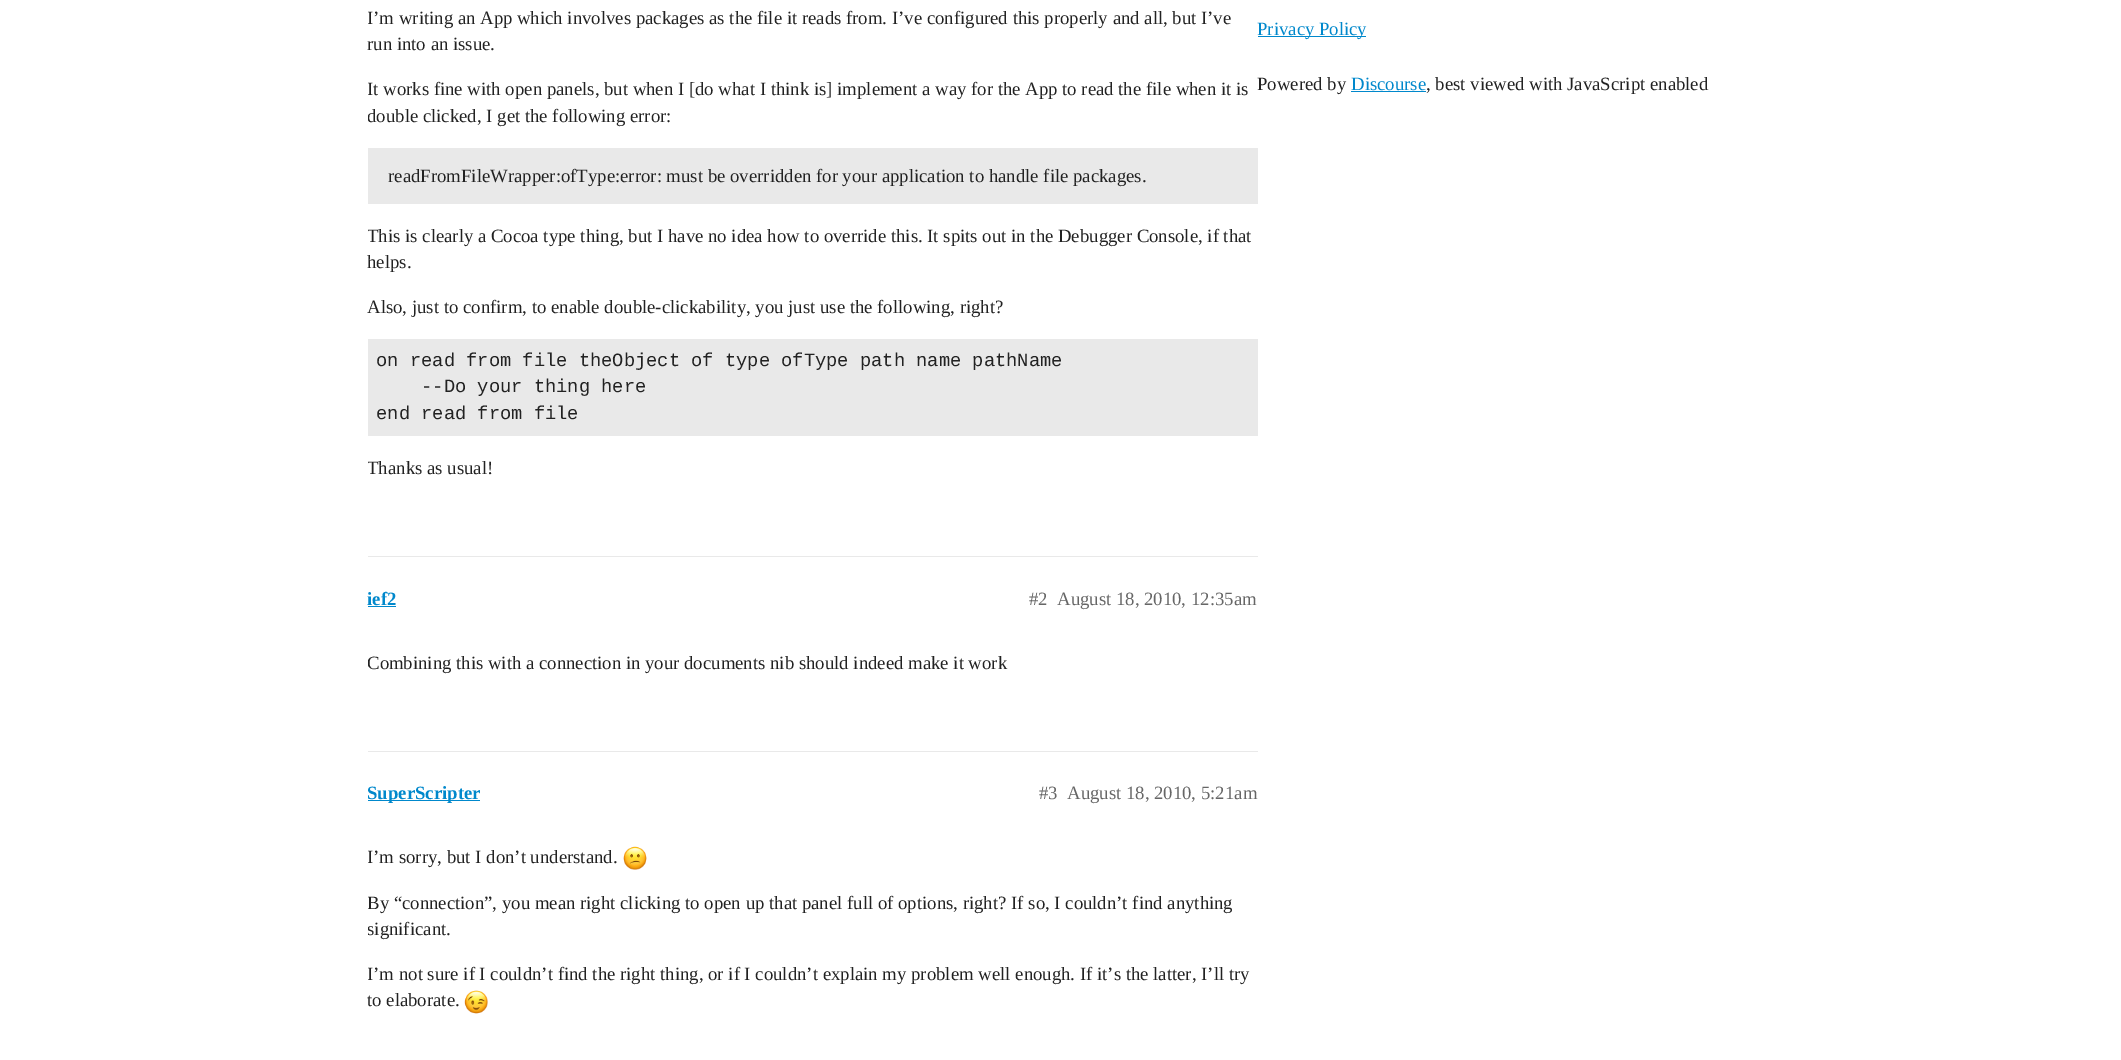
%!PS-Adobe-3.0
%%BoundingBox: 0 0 2121 1060
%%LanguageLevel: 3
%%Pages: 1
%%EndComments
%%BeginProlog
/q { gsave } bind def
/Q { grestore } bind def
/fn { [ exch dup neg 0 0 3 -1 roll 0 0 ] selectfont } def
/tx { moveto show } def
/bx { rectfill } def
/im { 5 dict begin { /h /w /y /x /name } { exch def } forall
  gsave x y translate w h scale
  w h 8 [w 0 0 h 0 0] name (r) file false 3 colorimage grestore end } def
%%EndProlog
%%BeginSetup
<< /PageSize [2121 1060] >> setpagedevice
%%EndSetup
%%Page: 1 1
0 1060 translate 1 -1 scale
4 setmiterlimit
1 setgray
0 0 2121 1060 bx
q
368 0 890 500 rectclip
/LiberationSerif-Regular 18.75 fn
0.133 setgray
(I’m writing an App which involves packages as the file it reads from. I’ve configured this properly and all, but I’ve) 367 24 tx
Q
/LiberationSerif-Regular 18.75 fn
0.133 setgray
(run into an issue.) 367 50 tx
q
368 0 890 500 rectclip
(It works fine with open panels, but when I [do what I think is] implement a way for the App to read the file when it is) 367 95 tx
(double clicked, I get the following error:) 367 122 tx
Q
0.914 setgray
368 148 890 56 bx
0.133 setgray
(readFromFileWrapper:ofType:error: must be overridden for your application to handle file packages.) 388 182 tx
q
368 0 890 500 rectclip
(This is clearly a Cocoa type thing, but I have no idea how to override this. It spits out in the Debugger Console, if that) 367 242 tx
Q
(helps.) 367 268 tx
(Also, just to confirm, to enable double-clickability, you just use the following, right?) 367 313 tx
0.914 setgray
368 339 890 97 bx
/LiberationMono-Regular 18.75 fn
0.133 setgray
(on read from file theObject of type ofType path name pathName) 376 366 tx
(--Do your thing here) 421 392 tx
(end read from file) 376 419 tx
q
368 0 890 500 rectclip
/LiberationSerif-Regular 18.75 fn
(Thanks as usual!) 367 474 tx
Q
0.914 setgray
368 556 890 1 bx
/LiberationSerif-Bold 18.75 fn
0 0.533 0.8 setrgbcolor
(ief2) 367 605 tx
368 606 28 1 bx
/LiberationSerif-Regular 18.75 fn
0.4 setgray
(#2) 1029 605 tx
(August 18, 2010, 12:35am) 1057 605 tx
q
368 631 890 64 rectclip
0.133 setgray
(Combining this with a connection in your documents nib should indeed make it work) 367 669 tx
Q
0.914 setgray
368 751 890 1 bx
0 0.533 0.8 setrgbcolor
368 800 112 1 bx
/LiberationSerif-Bold 18.75 fn
(SuperScripter) 367 799 tx
/LiberationSerif-Regular 18.75 fn
0.4 setgray
(#3) 1039 799 tx
(August 18, 2010, 5:21am) 1067 799 tx
q
368 825 890 209 rectclip
0.133 setgray
(I’m sorry, but I don’t understand.) 367 863 tx
Q
(image0.raw) 623 846 24 24 im
q
368 825 890 209 rectclip
0.133 setgray
(By “connection”, you mean right clicking to open up that panel full of options, right? If so, I couldn’t find anything) 367 909 tx
(significant.) 367 935 tx
(I’m not sure if I couldn’t find the right thing, or if I couldn’t explain my problem well enough. If it’s the latter, I’ll try) 367 980 tx
Q
0.133 setgray
(to elaborate.) 367 1006 tx
(image1.raw) 464 990 24 24 im
0 0.533 0.8 setrgbcolor
1258 36 108 1 bx
(Privacy Policy) 1257 35 tx
0.133 setgray
(Powered by) 1257 90 tx
0 0.533 0.8 setrgbcolor
(Discourse) 1351 90 tx
1351 91 75 1 bx
0.133 setgray
(, best viewed with JavaScript enabled) 1426 90 tx
showpage
%%EOF
